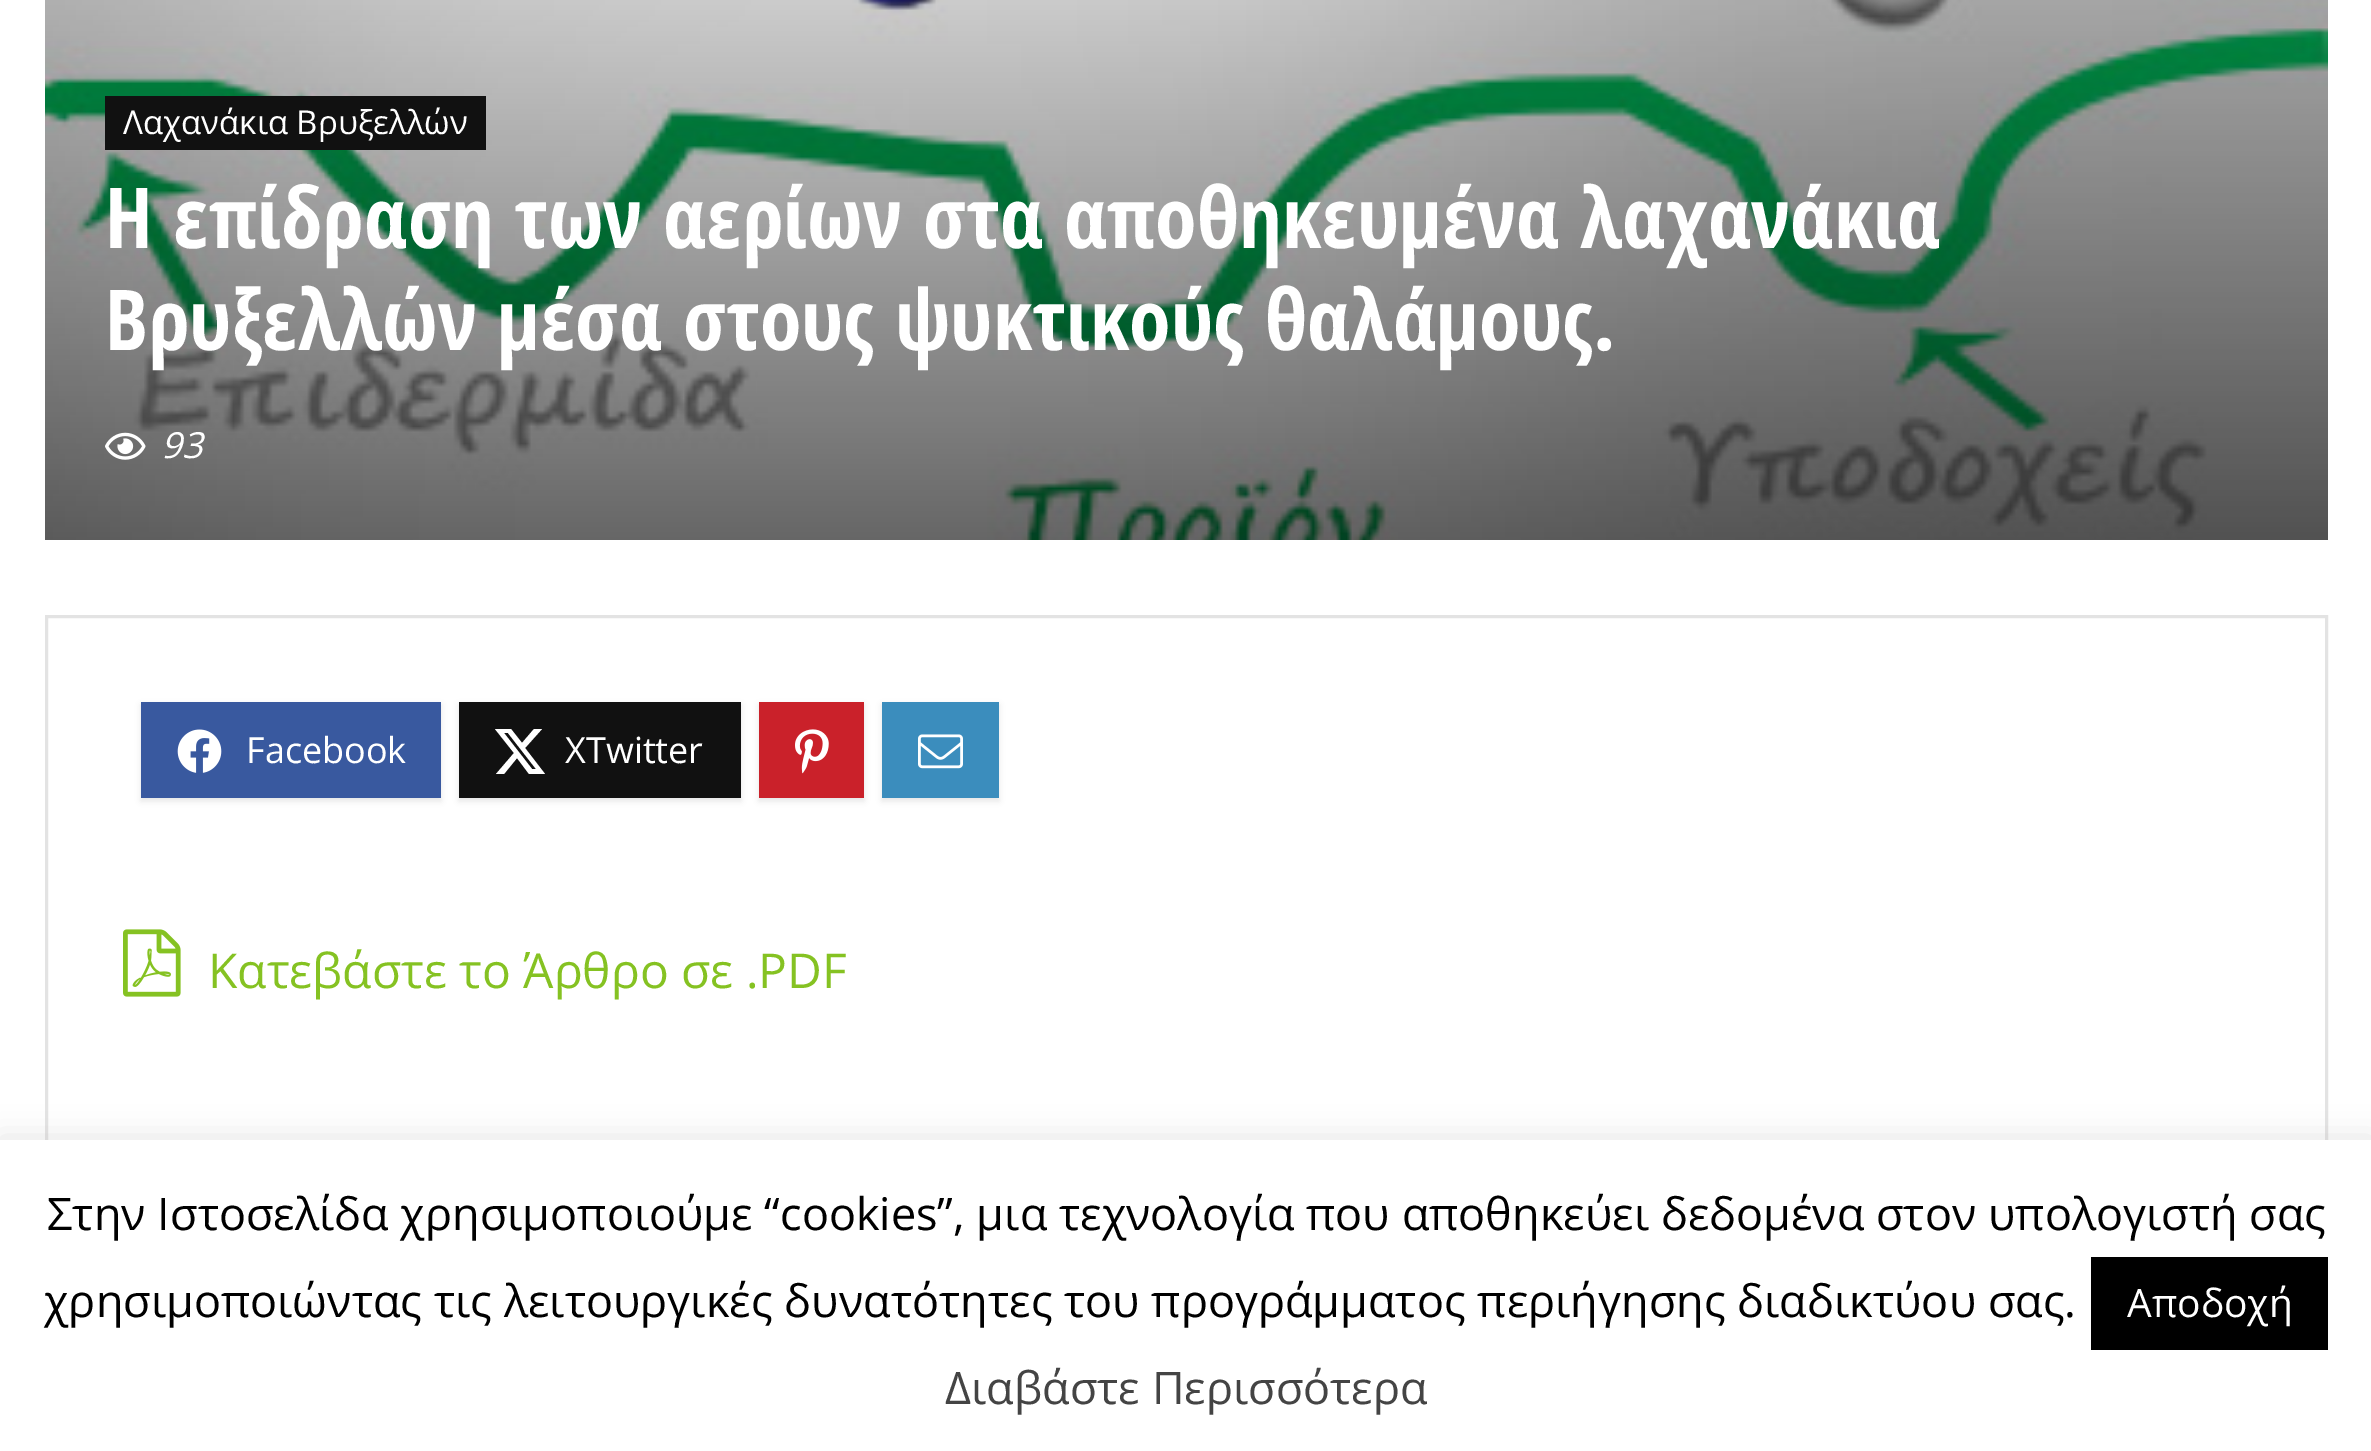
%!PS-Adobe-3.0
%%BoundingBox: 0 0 2371 1451
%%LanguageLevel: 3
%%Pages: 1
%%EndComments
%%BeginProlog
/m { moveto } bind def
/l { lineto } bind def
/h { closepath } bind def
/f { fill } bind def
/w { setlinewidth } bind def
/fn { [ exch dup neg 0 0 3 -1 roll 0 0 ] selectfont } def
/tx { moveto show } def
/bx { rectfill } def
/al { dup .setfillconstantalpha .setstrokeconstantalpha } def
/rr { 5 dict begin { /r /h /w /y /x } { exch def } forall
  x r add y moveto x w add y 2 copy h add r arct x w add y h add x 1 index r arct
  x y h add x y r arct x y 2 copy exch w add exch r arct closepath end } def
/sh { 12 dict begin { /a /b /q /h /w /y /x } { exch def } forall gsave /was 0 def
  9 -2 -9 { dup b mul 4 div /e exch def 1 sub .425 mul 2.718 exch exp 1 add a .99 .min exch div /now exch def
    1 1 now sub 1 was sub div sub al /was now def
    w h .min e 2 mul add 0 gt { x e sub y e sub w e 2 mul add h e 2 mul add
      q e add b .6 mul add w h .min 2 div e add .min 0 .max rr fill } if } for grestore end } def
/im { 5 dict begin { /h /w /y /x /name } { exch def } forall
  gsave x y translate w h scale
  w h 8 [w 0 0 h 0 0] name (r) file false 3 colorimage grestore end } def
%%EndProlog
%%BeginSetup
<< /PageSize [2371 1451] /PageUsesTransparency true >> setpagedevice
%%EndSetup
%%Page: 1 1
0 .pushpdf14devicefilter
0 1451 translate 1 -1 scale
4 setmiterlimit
1 setgray
0 0 2371 1451 bx
(image0.raw) 45 0 2283 540 im
0.067 setgray
105 96 381 54 bx
/OpenSans-Regular 33 fn
1 setgray
(Λαχανάκια Βρυξελλών) 123 134 tx
/OpenSansCondensed-Bold 84 fn
(Η επίδραση των αερίων στα αποθηκευμένα λαχανάκια) 105 248 tx
(Βρυξελλών μέσα στους ψυκτικούς θαλάμους.) 105 350 tx
(image1.raw) 105 432 41 28 im
/OpenSans-Italic 36 fn
(93) 161 458 tx
0.89 setgray
3 w
46.5 616.5 2280 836 rectstroke
0.894 setgray
141 705 300 96 0 3 1 sh
0.224 0.349 0.624 setrgbcolor
141 702 300 96 bx
(image2.raw) 177 729 45 44 im
/OpenSans-Regular 36 fn
1 setgray
(Facebook) 246 763 tx
0.894 setgray
459 705 282 96 0 3 1 sh
0.067 setgray
459 702 282 96 bx
1 setgray
534 729 m 542 729 l 525 748 l 545 774 l 529 774 l 517 758 l 504 774 l 496 774 l 514 753 l 495 729 l 511 729 l 522 743 l h 532 769 m 536 769 l 508 733 l 504 733 l h f
(XTwitter) 565 763 tx
0.894 setgray
759 705 105 96 0 3 1 sh
0.792 0.129 0.165 setrgbcolor
759 702 105 96 bx
(image3.raw) 795 729 34 45 im
0.894 setgray
882 705 117 96 0 3 1 sh
0.231 0.553 0.741 setrgbcolor
882 702 117 96 bx
(image4.raw) 918 734 45 35 im
(image5.raw) 123 929 58 68 im
/OpenSans-Regular 48 fn
0.522 0.761 0.133 setrgbcolor
(Κατεβάστε το Άρθρο σε .PDF) 208 988 tx
0.675 0.671 0.671 setrgbcolor
0 1137 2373 312 0 15 0.3 sh
1 setgray
0 1140 2371 311 bx
/OpenSans-Regular 45 fn
0 setgray
(Στην Ιστοσελίδα χρησιμοποιούμε “cookies”, μια τεχνολογία που αποθηκεύει δεδομένα στον υπολογιστή σας) 47 1230 tx
(χρησιμοποιώντας τις λειτουργικές δυνατότητες του προγράμματος περιήγησης διαδικτύου σας.) 44 1317 tx
2091 1257 237 93 bx
/OpenSans-Regular 39 fn
1 setgray
(Αποδοχή) 2127 1317 tx
/OpenSans-Regular 45 fn
0.267 setgray
(Διαβάστε Περισσότερα) 945 1404 tx
.poppdf14devicefilter showpage
%%EOF
